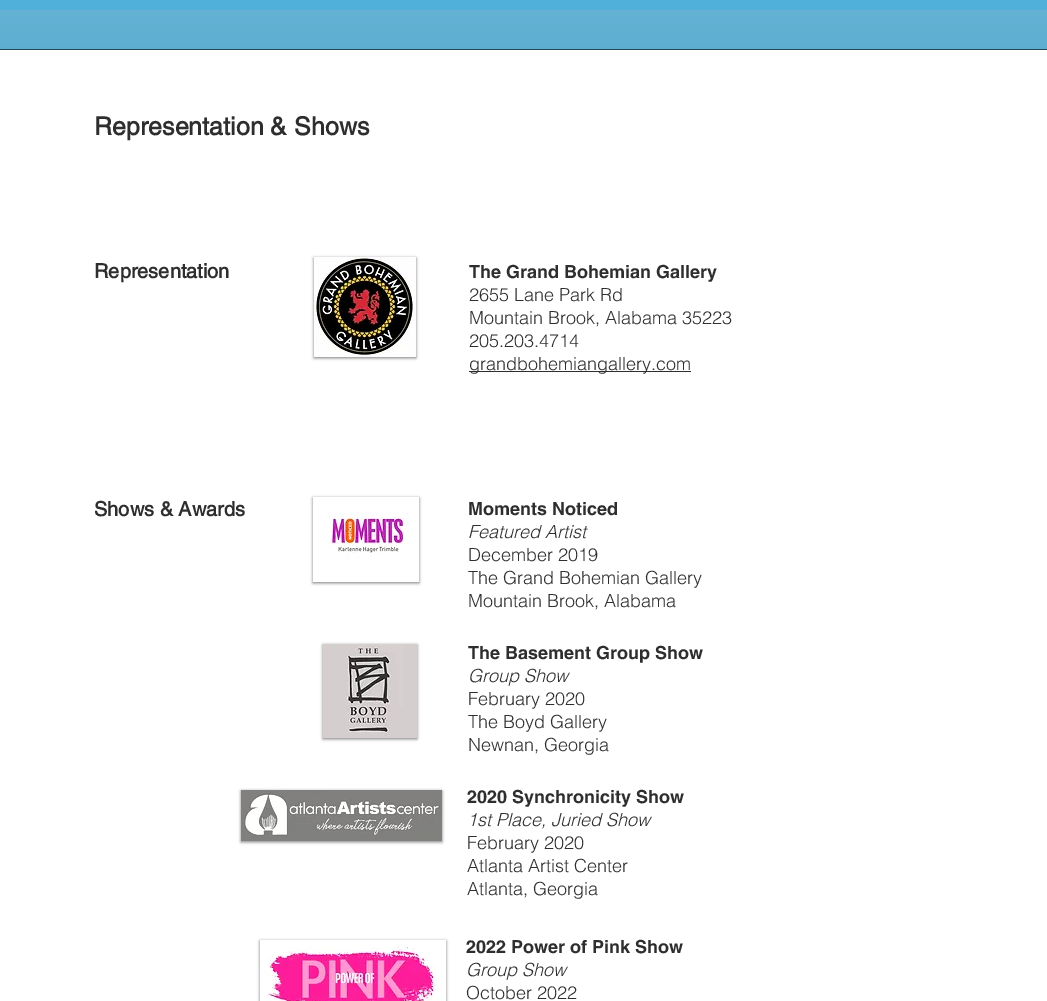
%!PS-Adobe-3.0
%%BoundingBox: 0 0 1047 1001
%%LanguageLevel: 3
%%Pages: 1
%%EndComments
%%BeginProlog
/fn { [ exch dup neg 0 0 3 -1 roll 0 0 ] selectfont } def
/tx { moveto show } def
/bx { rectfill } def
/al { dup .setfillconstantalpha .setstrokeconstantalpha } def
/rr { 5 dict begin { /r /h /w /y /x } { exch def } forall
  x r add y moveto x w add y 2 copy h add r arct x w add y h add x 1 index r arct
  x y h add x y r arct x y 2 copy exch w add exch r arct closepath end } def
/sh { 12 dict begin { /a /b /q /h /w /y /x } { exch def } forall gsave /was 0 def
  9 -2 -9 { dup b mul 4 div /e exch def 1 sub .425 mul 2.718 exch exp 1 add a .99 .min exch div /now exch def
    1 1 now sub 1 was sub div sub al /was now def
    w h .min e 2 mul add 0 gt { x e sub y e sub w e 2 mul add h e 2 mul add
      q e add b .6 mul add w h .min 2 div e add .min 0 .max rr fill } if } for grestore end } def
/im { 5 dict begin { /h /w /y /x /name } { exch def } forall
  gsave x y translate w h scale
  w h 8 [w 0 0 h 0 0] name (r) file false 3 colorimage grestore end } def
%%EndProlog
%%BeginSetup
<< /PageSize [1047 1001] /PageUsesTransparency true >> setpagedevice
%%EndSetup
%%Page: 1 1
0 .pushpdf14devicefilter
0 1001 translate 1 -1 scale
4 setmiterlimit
0.278 0.639 0.796 setrgbcolor
0 0 1047 1001 bx
0.318 0.69 0.851 setrgbcolor
0 0 1047 10 bx
(image0.raw) 0 10 1047 39 im
0.145 0.275 0.329 setrgbcolor
0 49 1047 1 bx
1 setgray
0 50 1047 951 bx
/helvetica-Bold 25 fn
0.184 0.18 0.18 setrgbcolor
(Representation & Shows) 94 135 tx
/helvetica-Bold 20 fn
(Representation) 94 278 tx
0 setgray
314 258 102 100 0 1.5 0.5 sh
(image1.raw) 314 257 102 100 im
/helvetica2-Bold 18 fn
0.184 0.18 0.18 setrgbcolor
(The Grand Bohemian Gallery) 469 278 tx
/helvetica-Light 18 fn
(2655 Lane Park Rd) 469 301 tx
(Mountain Brook, Alabama 35223) 469 324 tx
(205.203.4714) 469 347 tx
469 371 222 1 bx
(grandbohemiangallery.com) 469 370 tx
/helvetica-Bold 20 fn
(Shows & Awards) 94 516 tx
0 setgray
313 498 106 85 0 1.5 0.5 sh
(image2.raw) 313 497 106 85 im
/helvetica2-Bold 18 fn
0.184 0.18 0.18 setrgbcolor
(Moments Noticed) 468 515 tx
/helvetica-LightItalic 18 fn
(Featured Artist) 468 538 tx
/helvetica-Light 18 fn
(December 2019) 468 561 tx
(The Grand Bohemian Gallery) 468 584 tx
(Mountain Brook, Alabama) 468 607 tx
0 setgray
323 645 94 94 0 1.5 0.5 sh
(image3.raw) 323 644 94 94 im
/helvetica2-Bold 18 fn
0.184 0.18 0.18 setrgbcolor
(The Basement Group Show) 468 659 tx
/helvetica-LightItalic 18 fn
(Group Show) 468 682 tx
/helvetica-Light 18 fn
(February 2020) 468 705 tx
(The Boyd Gallery) 468 728 tx
(Newnan, Georgia) 468 751 tx
0 setgray
241 791 201 51 0 1.5 0.5 sh
(image4.raw) 241 790 201 51 im
/helvetica2-Bold 18 fn
0.184 0.18 0.18 setrgbcolor
(2020 Synchronicity Show) 467 803 tx
/helvetica-LightItalic 18 fn
(1st Place, Juried Show) 467 826 tx
/helvetica-Light 18 fn
(February 2020) 467 849 tx
(Atlanta Artist Center) 467 872 tx
(Atlanta, Georgia) 467 895 tx
0 setgray
260 941 186 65 0 1.5 0.5 sh
(image5.raw) 260 940 186 61 im
/helvetica2-Bold 18 fn
0.184 0.18 0.18 setrgbcolor
(2022 Power of Pink Show) 466 953 tx
/helvetica-LightItalic 18 fn
(Group Show) 466 976 tx
/helvetica-Light 18 fn
(October 2022) 466 999 tx
.poppdf14devicefilter showpage
%%EOF
